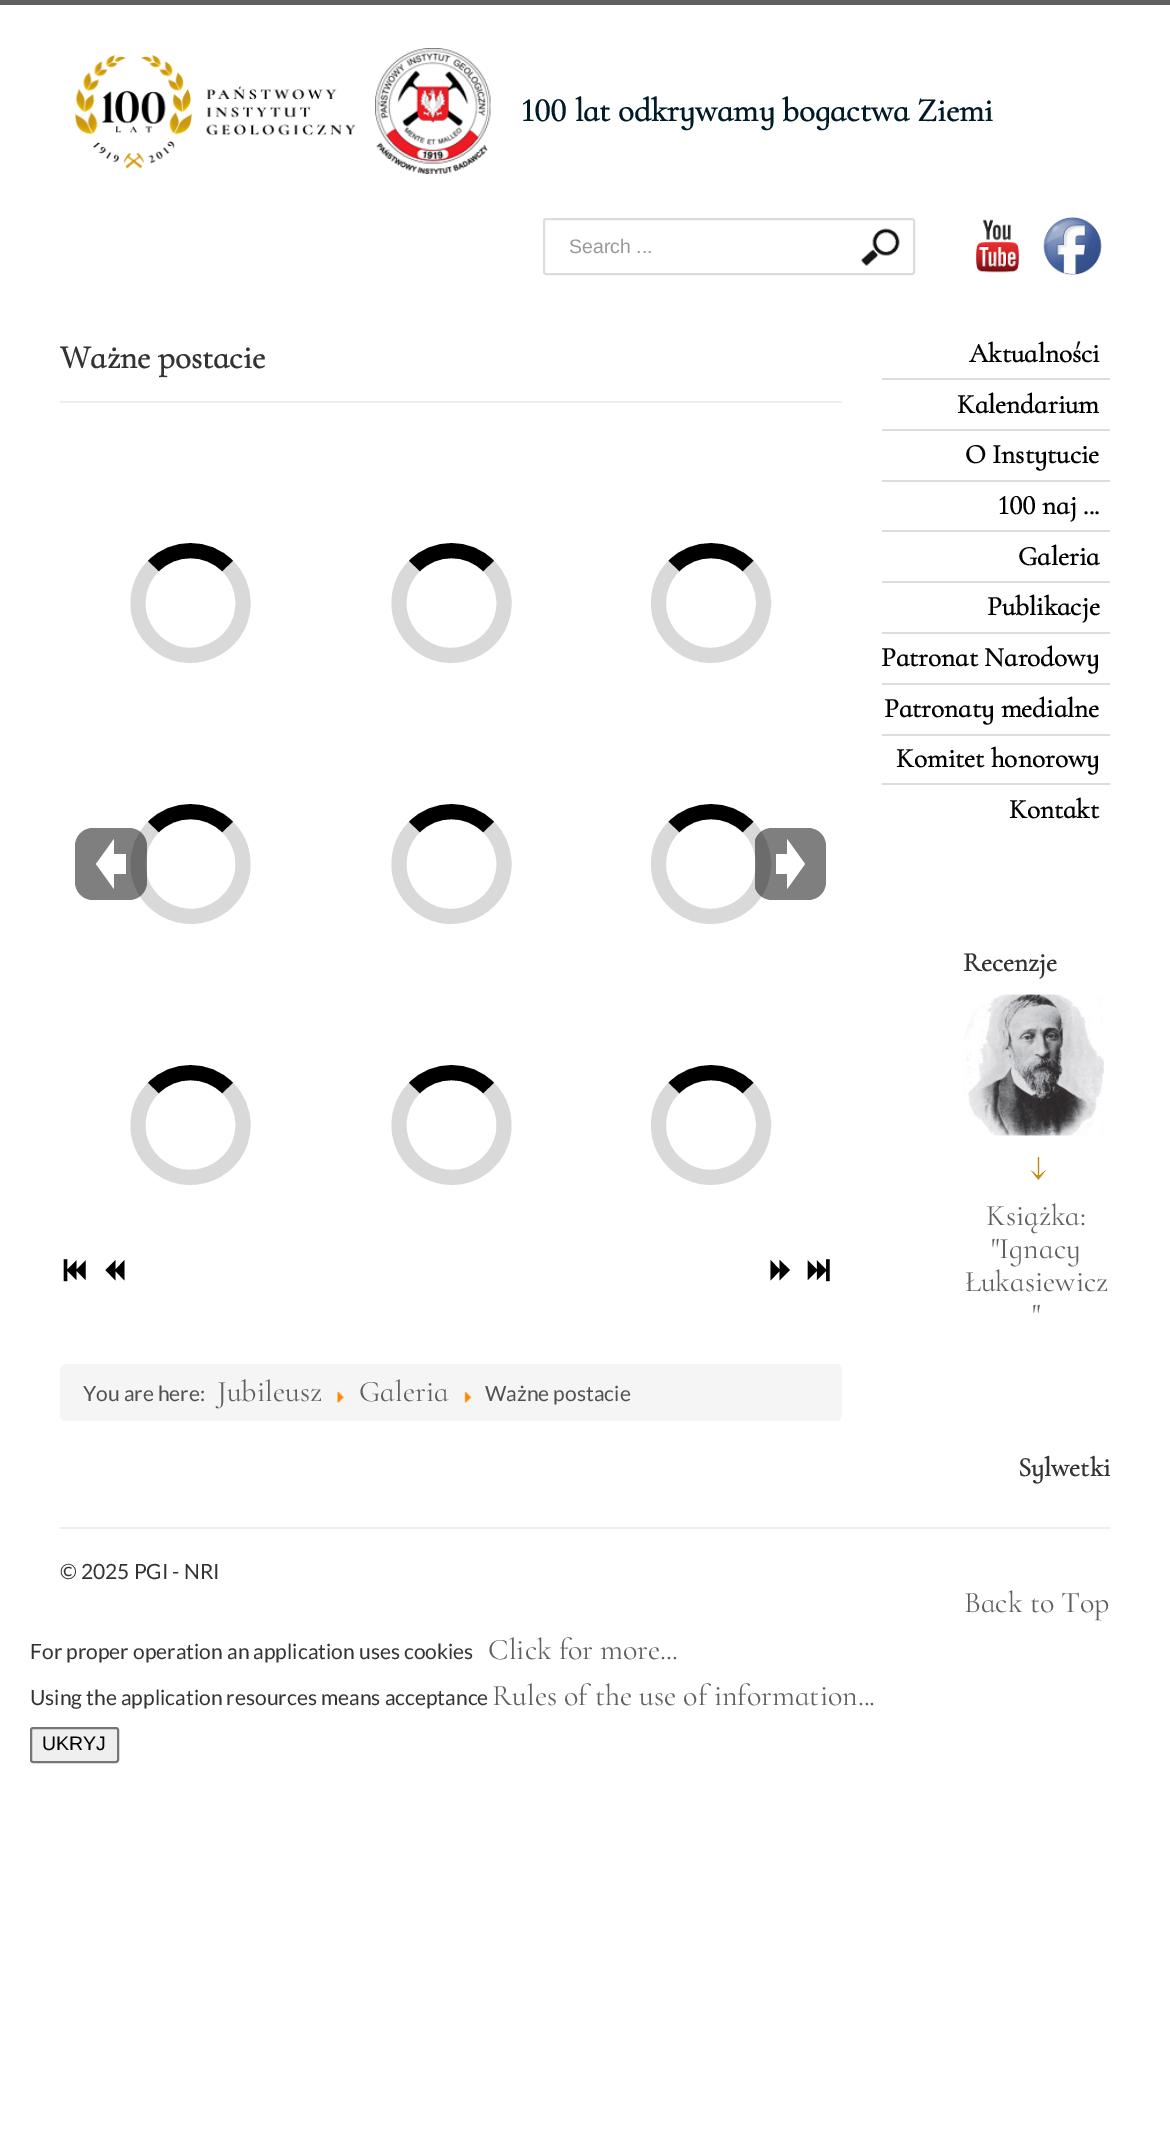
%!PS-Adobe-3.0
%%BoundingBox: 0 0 1170 2144
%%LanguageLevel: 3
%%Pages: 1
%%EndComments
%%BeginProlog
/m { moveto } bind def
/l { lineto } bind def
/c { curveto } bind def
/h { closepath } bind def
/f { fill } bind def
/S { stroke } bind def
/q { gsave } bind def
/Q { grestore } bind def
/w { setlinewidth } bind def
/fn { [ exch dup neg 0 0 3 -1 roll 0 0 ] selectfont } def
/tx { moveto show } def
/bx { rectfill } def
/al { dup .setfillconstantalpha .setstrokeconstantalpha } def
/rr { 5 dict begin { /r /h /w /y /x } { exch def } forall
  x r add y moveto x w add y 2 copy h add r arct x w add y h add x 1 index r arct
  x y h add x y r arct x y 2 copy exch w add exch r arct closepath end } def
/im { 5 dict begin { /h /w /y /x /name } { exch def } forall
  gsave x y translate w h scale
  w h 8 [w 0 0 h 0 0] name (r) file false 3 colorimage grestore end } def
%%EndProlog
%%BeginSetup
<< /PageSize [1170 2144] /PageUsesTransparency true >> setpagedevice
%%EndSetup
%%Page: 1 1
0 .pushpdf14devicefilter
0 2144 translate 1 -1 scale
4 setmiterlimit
1 setgray
0 0 1170 2144 bx
0.38 0.376 0.373 setrgbcolor
0 0 1170 5 bx
(image0.raw) 74 55 282 114 im
(image1.raw) 375 48 116 126 im
/CormorantInfant-Bold 33 fn
0 0.102 0.153 setrgbcolor
(100 lat odkrywamy bogactwa Ziemi) 521 121 tx
0.867 setgray
2 w
544 219 370 55 2 rr S
/LiberationSans-Regular 19.5 fn
0.6 setgray
(Search ...) 569 253 tx
(image2.raw) 861 228 39 38 im
(image3.raw) 976 219 44 54 im
(image4.raw) 1043 217 59 58 im
0.933 setgray
60 401 782 2 bx
/CormorantInfant-Bold 33 fn
0.2 setgray
(Ważne postacie) 60 368 tx
0 setgray
15 w
153.5 827 m 173.5 806.5 207.5 806.5 227.5 827 c S
0.2 al
0.251 setgray
227.5 827 m 240 839 245.5 857 242 874.5 c 240 884.5 235 894 227.5 901 c 195 934 138 910.5 138 864 c 138 850 143.5 836.5 153.5 827 c S
0.5 al
0 setgray
75 828 72 72 18 rr f
1 al
1 setgray
114 854 m 126 854 l 126 874 l 114 874 l h 96 864 m 114 889 l 114 889 m 96 864 l 114 839 l f
0 setgray
153.5 566 m 173.5 545.5 207.5 545.5 227.5 566 c S
0.2 al
0.251 setgray
227.5 566 m 237.5 575.5 243 589 243 603 c 243 649.5 186 673 153.5 640 c 146 633 141 623.5 139 613.5 c 135.5 596 141 578 153.5 566 c S
1 al
0 setgray
414.5 566 m 434.5 545.5 468.5 545.5 488.5 566 c S
0.2 al
0.251 setgray
488.5 566 m 498.5 575.5 504 589 504 603 c 504 649.5 447 673 414.5 640 c 407 633 402 623.5 400 613.5 c 396.5 596 402 578 414.5 566 c S
1 al
0 setgray
674 566 m 694 545.5 728 545.5 748 566 c S
0.2 al
0.251 setgray
748 566 m 758 575.5 763.5 589 763.5 603 c 763.5 649.5 706.5 673 674 640 c 666.5 633 661.5 623.5 659.5 613.5 c 656 596 661.5 578 674 566 c S
1 al
0 setgray
414.5 827 m 434.5 806.5 468.5 806.5 488.5 827 c S
0.2 al
0.251 setgray
488.5 827 m 498.5 836.5 504 850 504 864 c 504 910.5 447 934 414.5 901 c 407 894 402 884.5 400 874.5 c 396.5 857 402 839 414.5 827 c S
1 al
0 setgray
674 827 m 694 806.5 728 806.5 748 827 c S
0.2 al
0.251 setgray
748 827 m 758 836.5 763.5 850 763.5 864 c 763.5 910.5 706.5 934 674 901 c 666.5 894 661.5 884.5 659.5 874.5 c 656 857 661.5 839 674 827 c S
1 al
0 setgray
153.5 1088 m 173.5 1067.5 207.5 1067.5 227.5 1088 c S
0.2 al
0.251 setgray
227.5 1088 m 237.5 1097.5 243 1111 243 1125 c 243 1171.5 186 1195 153.5 1162 c 146 1155 141 1145.5 139 1135.5 c 135.5 1118 141 1100 153.5 1088 c S
1 al
0 setgray
414.5 1088 m 434.5 1067.5 468.5 1067.5 488.5 1088 c S
0.2 al
0.251 setgray
488.5 1088 m 501 1100 506.5 1118 503 1135.5 c 501 1145.5 496 1155 488.5 1162 c 456 1195 399 1171.5 399 1125 c 399 1111 404.5 1097.5 414.5 1088 c S
1 al
0 setgray
674 1088 m 694 1067.5 728 1067.5 748 1088 c S
0.2 al
0.251 setgray
748 1088 m 758 1097.5 763.5 1111 763.5 1125 c 763.5 1171.5 706.5 1195 674 1162 c 666.5 1155 661.5 1145.5 659.5 1135.5 c 656 1118 661.5 1100 674 1088 c S
q
755 828 87 72 rectclip
0.5 al
0 setgray
754 828 72 72 18 rr f
Q
1 al
1 setgray
787 854 m 776 854 l 776 874 l 787 874 l h 805 864 m 787 889 l 787 889 m 805 864 l 787 839 l f
(image5.raw) 63 1259 23 23 im
0 setgray
115.5 1260 m 115.5 1269.5 l 124.5 1260 l 124.5 1280.5 l 115.5 1271 l 115.5 1280.5 l 105.5 1270 l h f
779.5 1280.5 m 779.5 1271 l 770.5 1280.5 l 770.5 1260 l 779.5 1269.5 l 779.5 1260 l 790 1270 l h f
(image6.raw) 807 1259 23 23 im
0.961 setgray
60 1364 782 57 6 rr f
/Lato-Regular 21 fn
0.318 setgray
(You are here:) 83 1401 tx
/CormorantInfant-Light 30 fn
0.38 0.376 0.373 setrgbcolor
(Jubileusz) 217 1401 tx
(image7.raw) 337 1391 7 12 im
(Galeria) 359 1401 tx
(image8.raw) 464 1391 8 12 im
/Lato-Regular 21 fn
0.318 setgray
(Ważne postacie) 485 1401 tx
0.867 setgray
882 378 228 2 bx
/CormorantInfant-Bold 27.25 fn
0 setgray
(Aktualności) 969 362 tx
0.867 setgray
882 429 228 2 bx
0 setgray
(Kalendarium) 957 413 tx
0.867 setgray
882 480 228 2 bx
0 setgray
(O Instytucie) 965 463 tx
0.867 setgray
882 530 228 2 bx
0 setgray
(100 naj ...) 998 514 tx
0.867 setgray
882 581 228 2 bx
0 setgray
(Galeria) 1018 565 tx
0.867 setgray
882 632 228 2 bx
0 setgray
(Publikacje) 987 615 tx
0.867 setgray
882 683 228 2 bx
0 setgray
(Patronat Narodowy) 881 666 tx
0.867 setgray
882 734 228 2 bx
0 setgray
(Patronaty medialne) 884 717 tx
0.867 setgray
882 783 228 2 bx
0 setgray
(Komitet honorowy) 896 767 tx
(Kontakt) 1009 818 tx
/CormorantInfant-Bold 27 fn
0.2 setgray
(Recenzje) 963 971 tx
(image9.raw) 963 994 141 142 im
(image10.raw) 1030 1156 16 25 im
/CormorantInfant-Light 30 fn
0.38 0.376 0.373 setrgbcolor
(Książka:) 986 1225 tx
("Ignacy) 991 1258 tx
(Łukasiewicz) 965 1291 tx
(") 1032 1324 tx
/CormorantInfant-Bold 27 fn
0.2 setgray
(Sylwetki) 1018 1476 tx
0.933 setgray
60 1527 1050 2 bx
/Lato-Regular 21 fn
0.2 setgray
(© 2025 PGI - NRI) 60 1579 tx
/CormorantInfant-Light 30 fn
0.38 0.376 0.373 setrgbcolor
(Back to Top) 964 1612 tx
/Lato-Regular 21 fn
0.2 setgray
(For proper operation an application uses cookies) 30 1659 tx
/CormorantInfant-Light 30 fn
0.38 0.376 0.373 setrgbcolor
(Click for more...) 488 1659 tx
/Lato-Regular 21 fn
0.2 setgray
(Using the application resources means acceptance) 30 1705 tx
/CormorantInfant-Light 30 fn
0.38 0.376 0.373 setrgbcolor
(Rules of the use of information...) 492 1705 tx
0.937 setgray
31 1728 87 34 2 rr q f Q
0.463 setgray
2 w
S
/LiberationSans-Regular 19.5 fn
0 setgray
(UKRYJ) 42 1750 tx
.poppdf14devicefilter showpage
%%EOF
